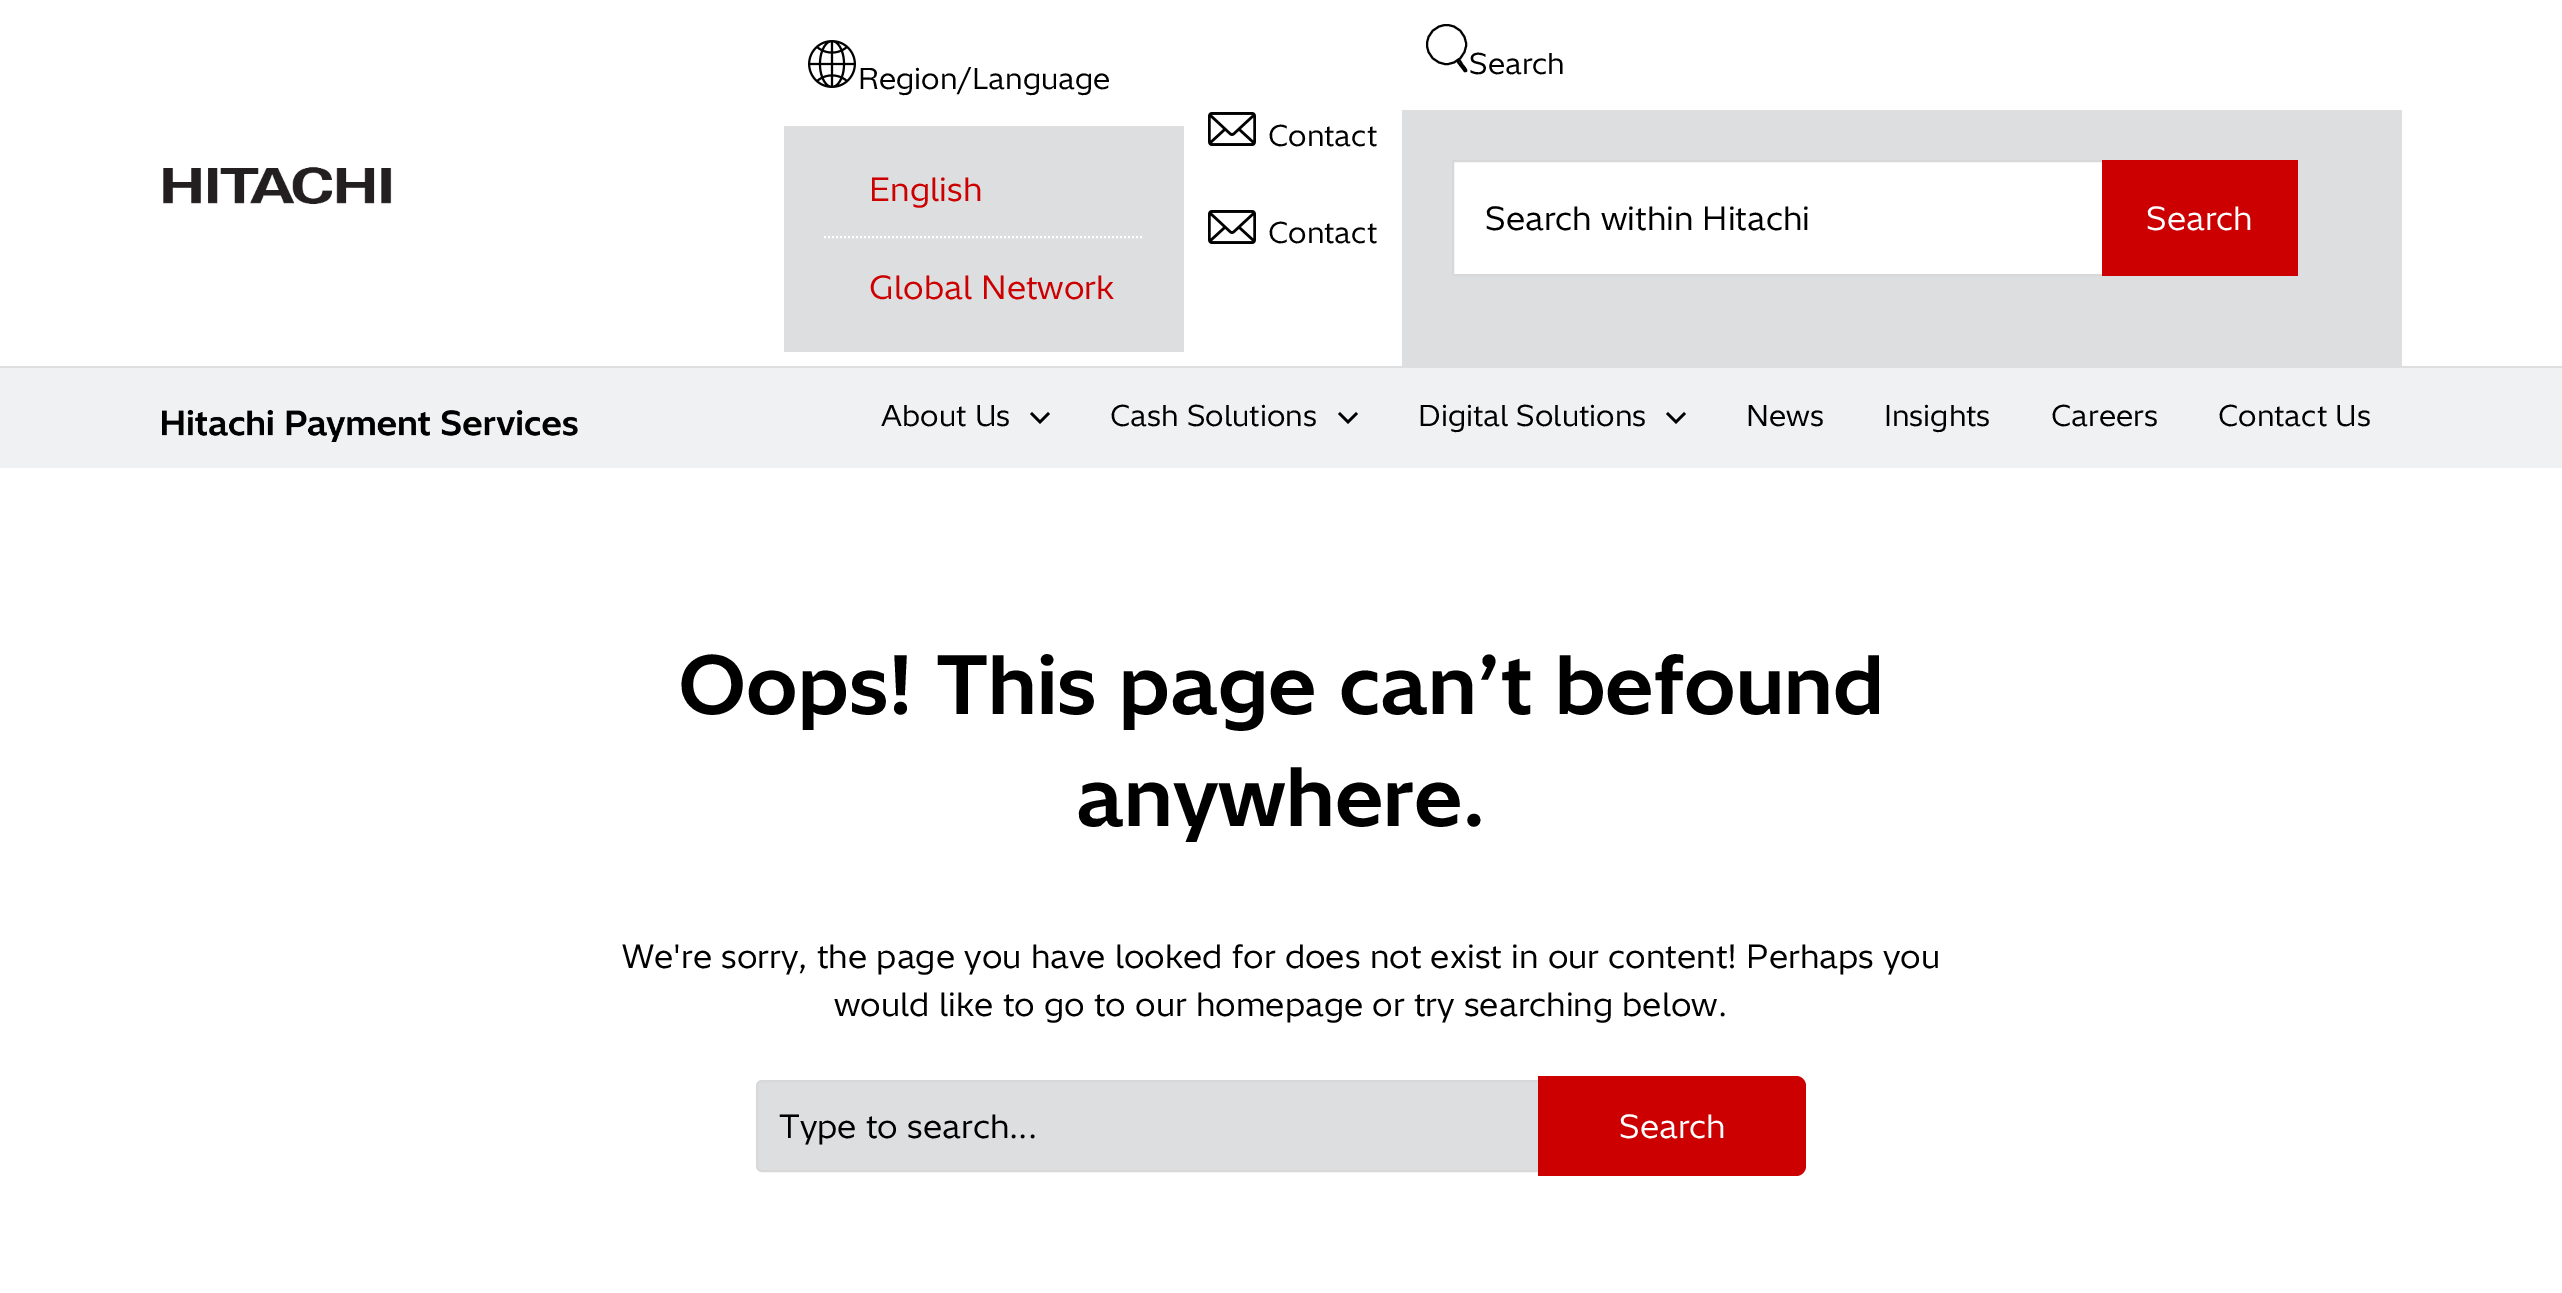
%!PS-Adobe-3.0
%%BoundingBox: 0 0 2562 1293
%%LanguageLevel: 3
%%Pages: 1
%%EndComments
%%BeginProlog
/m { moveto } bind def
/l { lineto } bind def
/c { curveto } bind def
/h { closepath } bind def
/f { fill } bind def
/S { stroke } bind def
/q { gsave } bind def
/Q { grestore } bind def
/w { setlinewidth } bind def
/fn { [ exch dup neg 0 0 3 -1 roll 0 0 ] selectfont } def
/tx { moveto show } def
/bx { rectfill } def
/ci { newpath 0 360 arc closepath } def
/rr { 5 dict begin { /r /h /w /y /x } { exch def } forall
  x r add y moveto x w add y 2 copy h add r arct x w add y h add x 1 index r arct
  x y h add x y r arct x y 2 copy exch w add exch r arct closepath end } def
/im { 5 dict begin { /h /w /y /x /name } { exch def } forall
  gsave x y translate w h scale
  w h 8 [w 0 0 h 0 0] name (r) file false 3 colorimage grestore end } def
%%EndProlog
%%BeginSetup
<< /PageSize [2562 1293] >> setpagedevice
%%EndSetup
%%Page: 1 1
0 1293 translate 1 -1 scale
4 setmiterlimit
1 setgray
0 0 2562 1293 bx
0.867 0.871 0.875 setrgbcolor
0 366 2562 2 bx
(image0.raw) 163 166 229 39 im
(image1.raw) 808 40 48 48 im
/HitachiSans-Regular 28.75 fn
0 setgray
(Region/Language) 858 89 tx
0.867 0.871 0.875 setrgbcolor
784 126 400 226 bx
/HitachiSans-Regular 32 fn
0.8 0 0.004 setrgbcolor
(English) 869 201 tx
1 setgray
2 w
[2 2] 0 setdash
824 237 m 1144 237 l S
0.8 0 0.004 setrgbcolor
(Global Network) 869 299 tx
(image2.raw) 1208 112 48 34 im
/HitachiSans-Regular 28.75 fn
0 setgray
(Contact) 1268 146 tx
(image2.raw) 1208 210 48 34 im
(Contact) 1268 243 tx
[] 0 setdash
1446.5 44.5 19.5 ci S
(Search) 1469 74 tx
1.9 w
1458 60 m 1459 59 1460 61 1460.5 61.5 c 1462.5 65 l 1463 65.5 1467.5 70.5 1466 71 c 1464.5 72 1464 70 1463.5 69.5 c 1458.5 63 l 1458.5 62.5 1456.5 60.5 1458 60 c h S
0.867 0.871 0.875 setrgbcolor
1402 110 1000 256 bx
1 setgray
1454 162 648 112 bx
0.847 setgray
2 w
1453 161 660 114 rectstroke
/HitachiSans-Regular 32 fn
0 setgray
(Search within Hitachi) 1485 230 tx
0.8 0 0.004 setrgbcolor
2102 160 196 116 bx
1 setgray
(Search) 2146 230 tx
0.941 0.945 0.949 setrgbcolor
0 368 2562 100 bx
(image3.raw) 162 410 416 32 im
/HitachiSans-Regular 28.75 fn
0 setgray
(About Us) 881 426 tx
1032 412 m 1030 414 l 1040 424 l 1050 414 l 1048 412 l 1040 420 l h f
(Cash Solutions) 1110 426 tx
1340 412 m 1338 414 l 1348 424 l 1358 414 l 1356 412 l 1348 420 l h f
(Digital Solutions) 1418 426 tx
1668 412 m 1666 414 l 1676 424 l 1686 414 l 1684 412 l 1676 420 l h f
(News) 1746 426 tx
(Insights) 1884 426 tx
(Careers) 2051 426 tx
(Contact Us) 2218 426 tx
/HitachiSans-Bold 80 fn
(Oops! This page can’t befound) 678 714 tx
(anywhere.) 1076 826 tx
/HitachiSans-Regular 32 fn
(We're sorry, the page you have looked for does not exist in our content! Perhaps you) 622 968 tx
(would like to go to our homepage or try searching below.) 834 1016 tx
0.867 0.871 0.875 setrgbcolor
757 1081 792 90 5 rr q f Q
0.847 setgray
S
0 setgray
(Type to search...) 779 1138 tx
0.8 0 0.004 setrgbcolor
1538 1076 m 1796 1076 l 1801.5 1076 1806 1080.5 1806 1086 c 1806 1166 l 1806 1171.5 1801.5 1176 1796 1176 c 1538 1176 l h f
1 setgray
(Search) 1619 1138 tx
showpage
%%EOF
